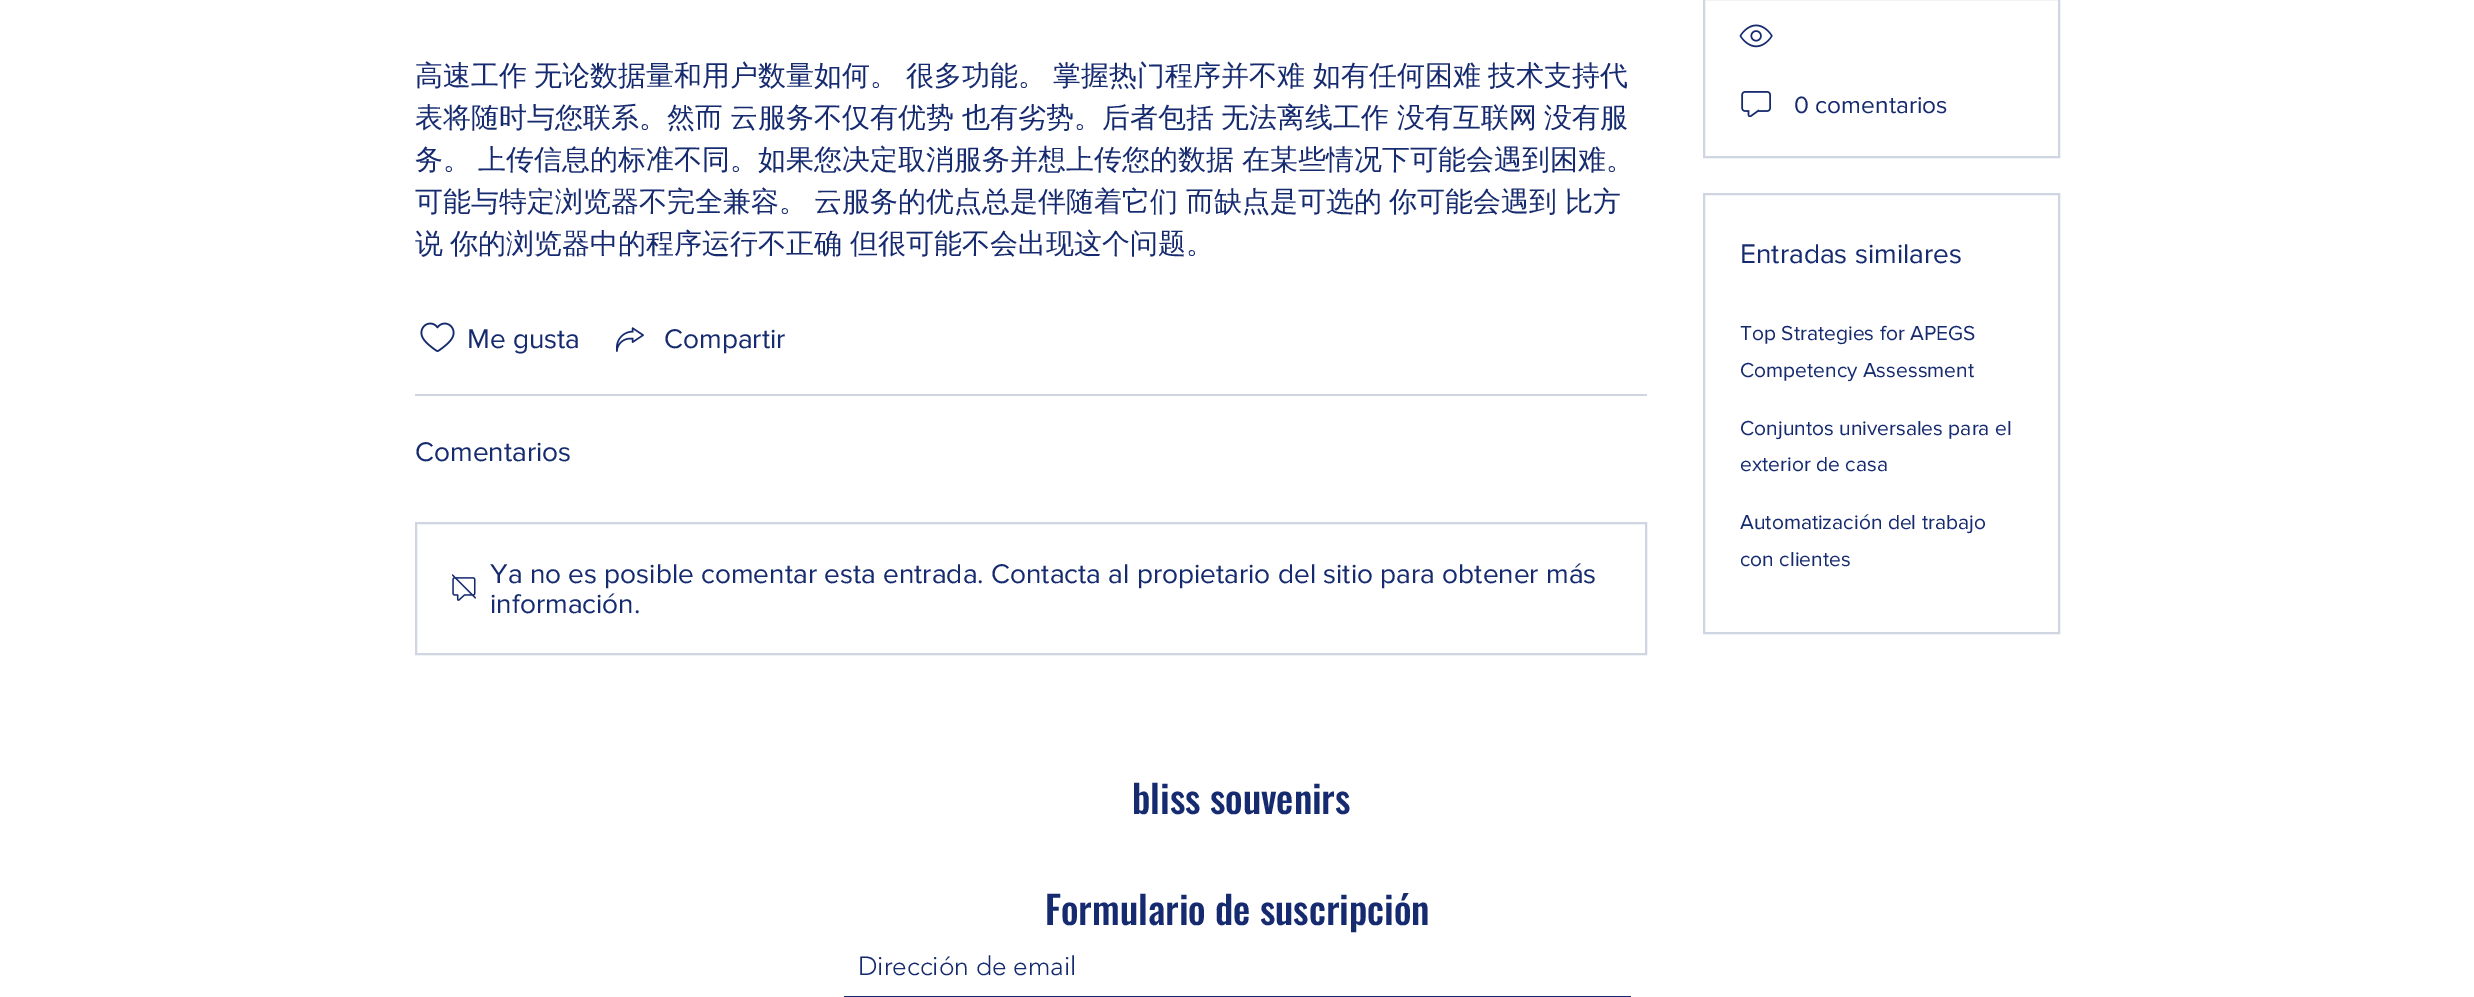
%!PS-Adobe-3.0
%%BoundingBox: 0 0 2474 997
%%LanguageLevel: 3
%%Pages: 1
%%EndComments
%%BeginProlog
/m { moveto } bind def
/w { setlinewidth } bind def
/fn { [ exch dup neg 0 0 3 -1 roll 0 0 ] selectfont } def
/tx { moveto show } def
/bx { rectfill } def
/im { 5 dict begin { /h /w /y /x /name } { exch def } forall
  gsave x y translate w h scale
  w h 8 [w 0 0 h 0 0] name (r) file false 3 colorimage grestore end } def
%%EndProlog
%%BeginSetup
<< /PageSize [2474 997] >> setpagedevice
%%EndSetup
%%Page: 1 1
0 997 translate 1 -1 scale
4 setmiterlimit
1 setgray
0 0 2474 997 bx
/WenQuanYiZenHei-Medium 28 fn
0.086 0.169 0.435 setrgbcolor
415 85 m -1 0 32 (高速工作 无论数据量和用户数量如何。 很多功能。 掌握热门程序并不难 如有任何困难 技术支持代) widthshow
415 127 m -1 0 32 (表将随时与您联系。然而 云服务不仅有优势 也有劣势。后者包括 无法离线工作 没有互联网 没有服) widthshow
415 169 m -1 0 32 (务。 上传信息的标准不同。如果您决定取消服务并想上传您的数据 在某些情况下可能会遇到困难。) widthshow
415 211 m -1 0 32 (可能与特定浏览器不完全兼容。 云服务的优点总是伴随着它们 而缺点是可选的 你可能会遇到 比方) widthshow
415 253 m -1 0 32 (说 你的浏览器中的程序运行不正确 但很可能不会出现这个问题。) widthshow
(image0.raw) 420 322 35 30 im
/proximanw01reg-Regular 28 fn
(Me gusta) 467 348 tx
(image1.raw) 616 327 28 25 im
(Compartir) 664 348 tx
0.816 0.835 0.886 setrgbcolor
415 394 1232 2 bx
0.086 0.169 0.435 setrgbcolor
(Comentarios) 415 461 tx
0.816 0.835 0.886 setrgbcolor
2 w
416 523 1230 131 rectstroke
(image2.raw) 452 574 24 27 im
0.086 0.169 0.435 setrgbcolor
(Ya no es posible comentar esta entrada. Contacta al propietario del sitio para obtener más) 490 583 tx
(información.) 490 613 tx
0.816 0.835 0.886 setrgbcolor
1704 -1 355 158 rectstroke
(image3.raw) 1739 24 34 24 im
(image4.raw) 1741 91 30 26 im
/proximanw01reg-Regular 24.5 fn
0.086 0.169 0.435 setrgbcolor
(0 comentarios) 1794 113 tx
0.816 0.835 0.886 setrgbcolor
1704 194 355 439 rectstroke
/proximanw01reg-Regular 28 fn
0.086 0.169 0.435 setrgbcolor
(Entradas similares) 1740 263 tx
/proximanw01reg-Regular 21 fn
(Top Strategies for APEGS) 1740 340 tx
(Competency Assessment) 1740 377 tx
(Conjuntos universales para el) 1740 435 tx
(exterior de casa) 1740 471 tx
(Automatización del trabajo) 1740 529 tx
(con clientes) 1740 566 tx
/Oswald-Medium 38.5 fn
(bliss souvenirs) 1132 814 tx
(Formulario de suscripción) 1045 925 tx
844 996 787 1 bx
/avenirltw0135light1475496-Light 26.25 fn
(Dirección de email) 858 975 tx
showpage
%%EOF
